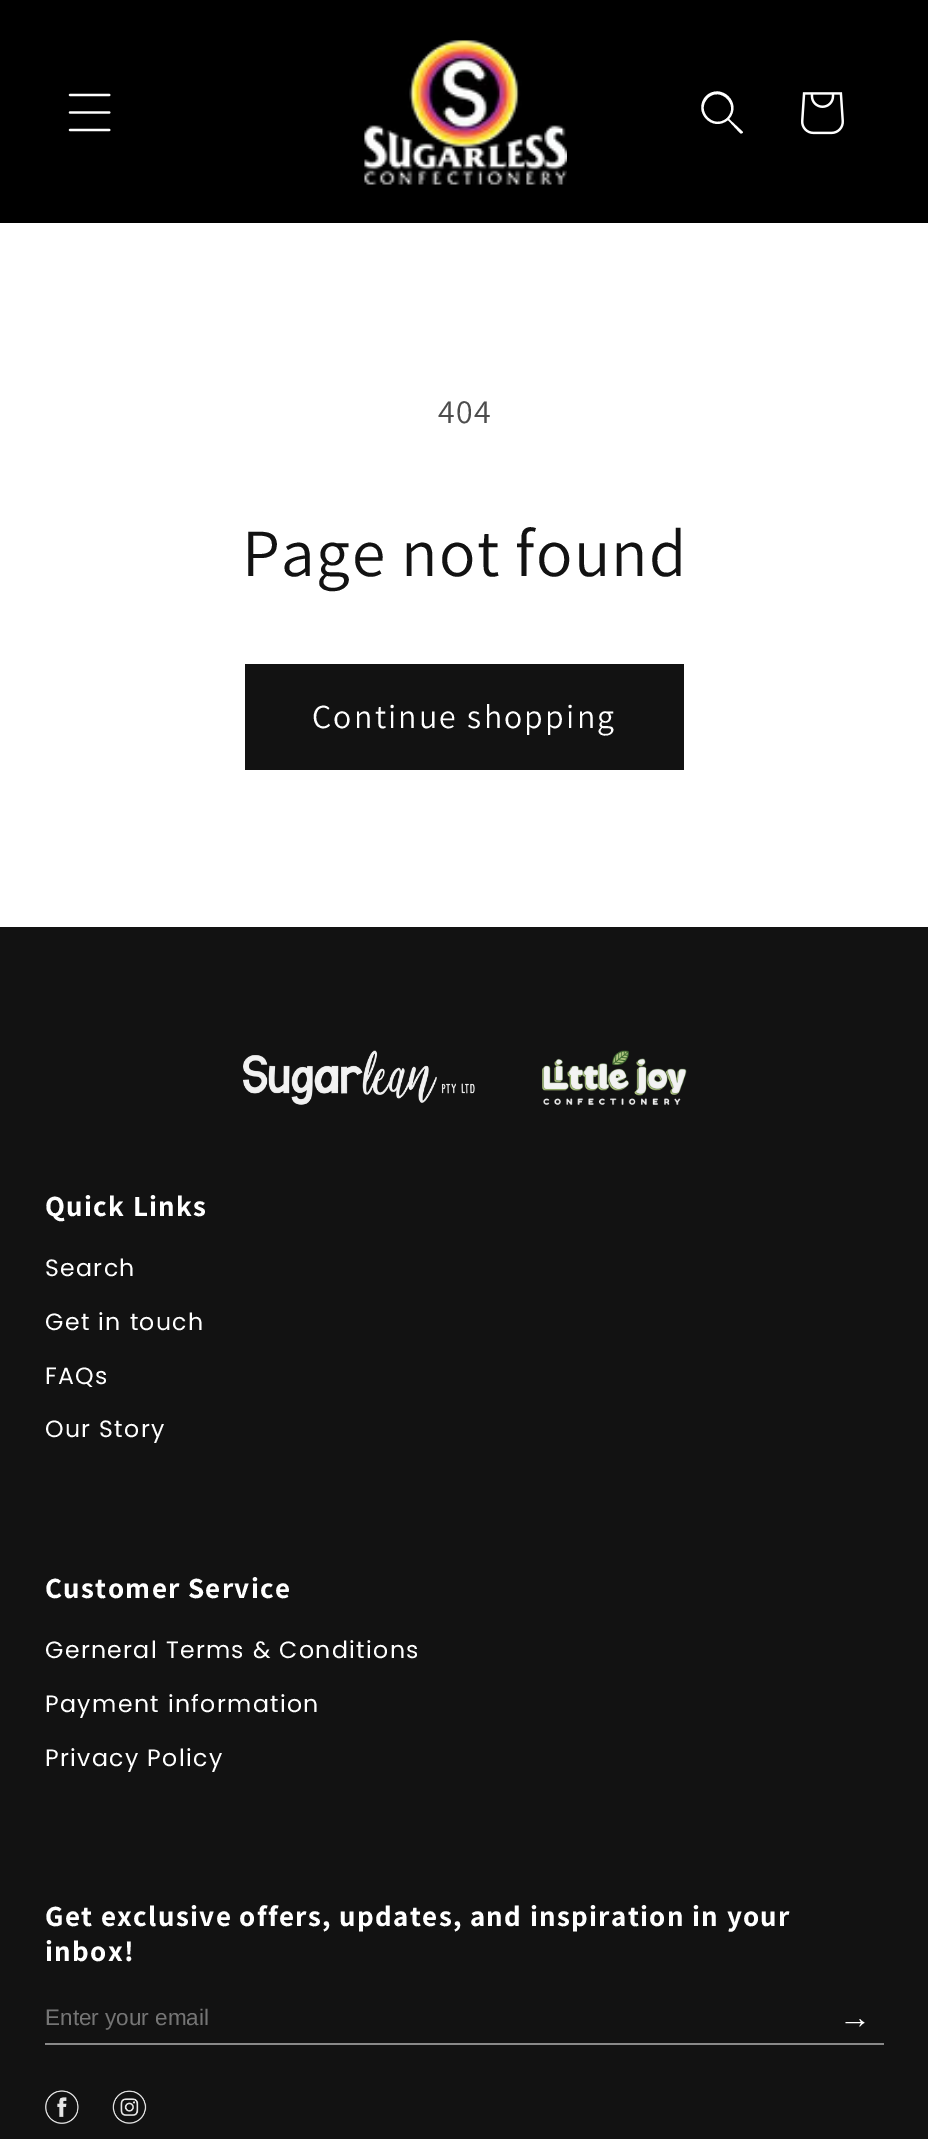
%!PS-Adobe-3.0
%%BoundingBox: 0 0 928 2139
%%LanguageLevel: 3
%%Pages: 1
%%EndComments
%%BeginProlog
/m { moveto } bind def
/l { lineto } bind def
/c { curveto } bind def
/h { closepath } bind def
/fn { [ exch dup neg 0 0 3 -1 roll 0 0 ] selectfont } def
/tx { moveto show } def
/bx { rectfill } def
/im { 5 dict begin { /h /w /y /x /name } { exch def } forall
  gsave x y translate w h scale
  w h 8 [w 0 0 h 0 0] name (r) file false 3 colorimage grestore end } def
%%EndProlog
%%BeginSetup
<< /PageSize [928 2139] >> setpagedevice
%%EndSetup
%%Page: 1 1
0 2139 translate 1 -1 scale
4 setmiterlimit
1 setgray
0 0 928 2139 bx
0 setgray
0 0 928 223 bx
(image0.raw) 68 93 43 39 im
(image1.raw) 364 40 203 145 im
1 setgray
727 118 m 714 130 695 111 708 98 c 720 86 740 105 727 118 c 728 120 m 712 133 692 111 706 96 c 721 82 743 103 729 119 c 743 132 l 743 133 741 134 740 133 c h eofill
(image2.raw) 801 92 43 43 im
/Assistant-Regular 33.75 fn
0.302 setgray
438 423 m 1.35 0 (404) ashow
/Assistant-Regular 67.5 fn
0.071 setgray
242 576 m 1.35 0 (Page not found) ashow
245 664 439 106 bx
/Assistant-Regular 33.75 fn
1 setgray
312 728 m 2.25 0 (Continue shopping) ashow
0.071 setgray
0 927 928 1212 bx
(image3.raw) 243 1050 232 55 im
(image4.raw) 542 1050 145 55 im
/Assistant-Bold 29.25 fn
1 setgray
45 1216 m 1.35 0 (Quick Links) ashow
/Poppins-Regular 23.6 fn
45 1276 m 1.35 0 (Search) ashow
45 1330 m 1.35 0 (Get in touch) ashow
45 1384 m 1.35 0 (FAQs) ashow
45 1437 m 1.35 0 (Our Story) ashow
/Assistant-Bold 29.25 fn
45 1598 m 1.35 0 (Customer Service) ashow
/Poppins-Regular 23.6 fn
45 1658 m 1.35 0 (Gerneral Terms & Conditions) ashow
45 1712 m 1.35 0 (Payment information) ashow
45 1766 m 1.35 0 (Privacy Policy) ashow
/Assistant-Bold 29.25 fn
45 1926 m 1.35 0 (Get exclusive offers, updates, and inspiration in your) ashow
45 1961 m 1.35 0 (inbox!) ashow
0.537 setgray
45 2043 839 2 bx
/LiberationSans-Regular 22.5 fn
0.459 setgray
(Enter your email) 45 2025 tx
/LiberationSans-Regular 32 fn
1 setgray
(→) 839 2028 tx
(image5.raw) 45 2090 34 34 im
(image6.raw) 112 2090 35 34 im
showpage
%%EOF
